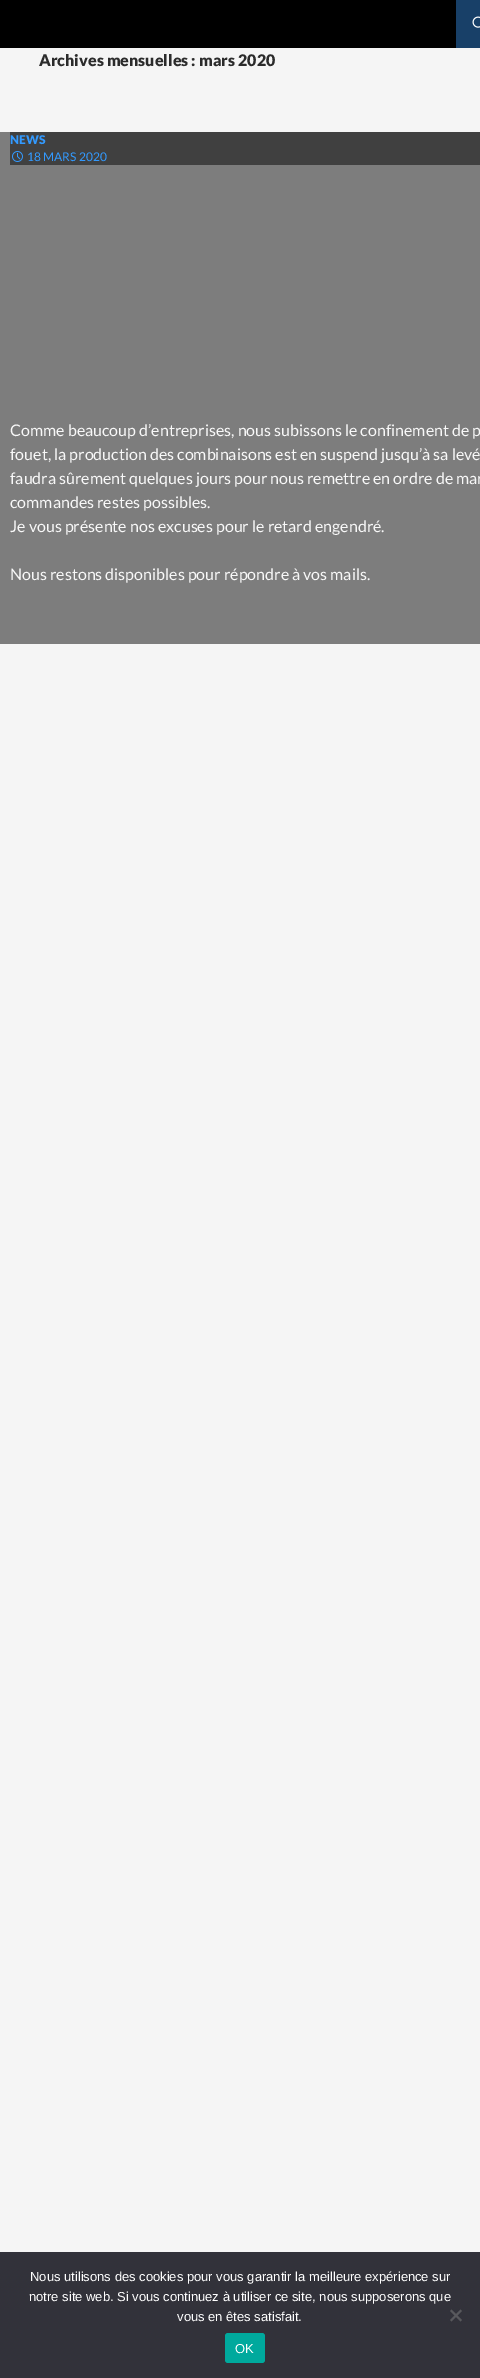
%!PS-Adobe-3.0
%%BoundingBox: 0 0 480 2378
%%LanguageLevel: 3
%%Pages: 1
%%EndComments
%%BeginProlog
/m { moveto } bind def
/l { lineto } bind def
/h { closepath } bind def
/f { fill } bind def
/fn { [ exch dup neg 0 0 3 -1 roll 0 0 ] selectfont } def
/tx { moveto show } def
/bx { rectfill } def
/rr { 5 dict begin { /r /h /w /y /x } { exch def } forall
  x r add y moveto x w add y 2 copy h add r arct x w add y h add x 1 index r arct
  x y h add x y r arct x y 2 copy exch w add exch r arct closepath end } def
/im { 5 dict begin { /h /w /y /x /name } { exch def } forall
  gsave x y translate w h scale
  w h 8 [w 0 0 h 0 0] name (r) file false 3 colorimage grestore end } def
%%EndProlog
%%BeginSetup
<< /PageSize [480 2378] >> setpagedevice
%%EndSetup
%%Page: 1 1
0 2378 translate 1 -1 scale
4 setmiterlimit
0.961 setgray
0 0 480 2378 bx
0 setgray
0 0 456 48 bx
0.094 0.251 0.408 setrgbcolor
456 0 24 48 bx
(image0.raw) 472 16 8 12 im
/Lato-Black 16 fn
0.169 setgray
(Archives mensuelles : mars 2020) 39 66 tx
0.49 setgray
0 132 480 512 bx
0.251 setgray
10 132 470 33 bx
/Lato-Black 12 fn
0.2 0.604 1 setrgbcolor
(NEWS) 10 144 tx
(image1.raw) 12 151 11 11 im
/Lato-Regular 12 fn
(18 MARS 2020) 27 161 tx
/Lato-Regular 16 fn
0.973 setgray
(Comme beaucoup d’entreprises, nous subissons le confinement de p) 10 436 tx
(fouet, la production des combinaisons est en suspend jusqu’à sa levé) 10 460 tx
(faudra sûrement quelques jours pour nous remettre en ordre de mar) 10 484 tx
(commandes restes possibles.) 10 508 tx
(Je vous présente nos excuses pour le retard engendré.) 10 532 tx
(Nous restons disponibles pour répondre à vos mails.) 10 580 tx
0.196 0.196 0.227 setrgbcolor
0 2252 480 126 bx
/LiberationSans-Regular 13 fn
1 setgray
(Nous utilisons des cookies pour vous garantir la meilleure expérience sur) 30 2281 tx
(notre site web. Si vous continuez à utiliser ce site, nous supposerons que) 29 2301 tx
(vous en êtes satisfait.) 177 2321 tx
0.349 0.349 0.365 setrgbcolor
460.5 2309.5 m 462 2311 l 451.5 2321.5 l 450 2320 l h f
450 2311 m 451.5 2309.5 l 462 2320 l 460.5 2321.5 l h f
0 0.663 0.616 setrgbcolor
225 2333 40 30 3 rr f
1 setgray
(OK) 235 2353 tx
showpage
%%EOF
